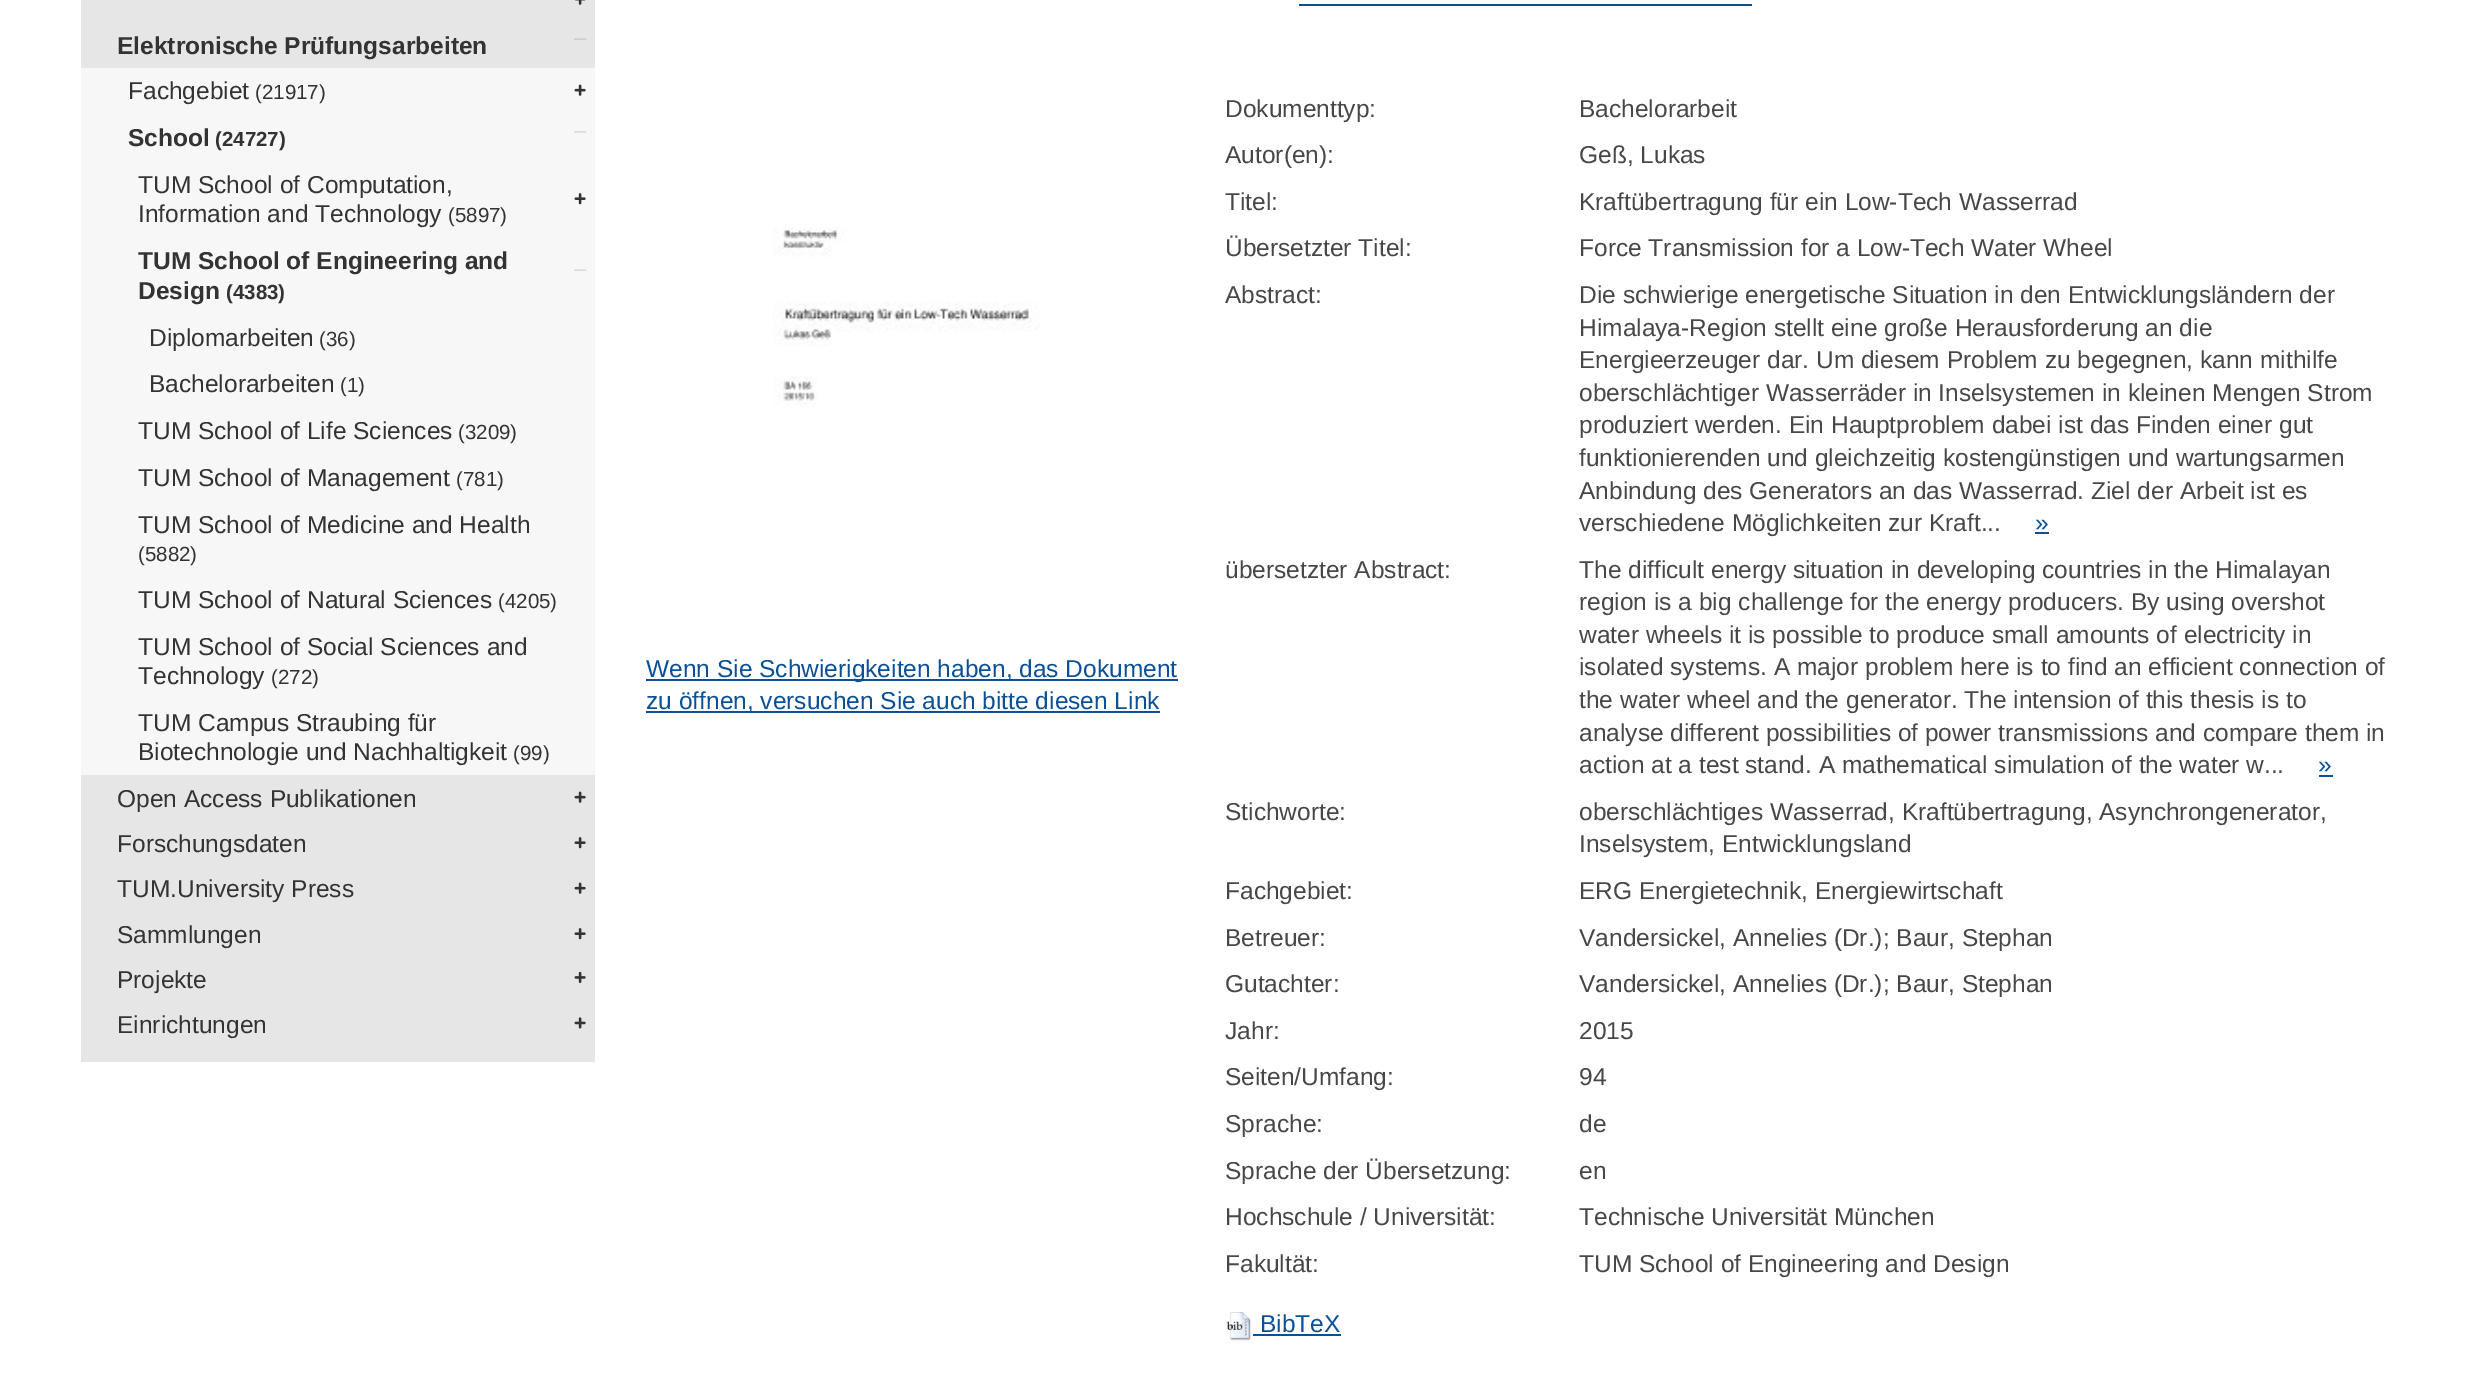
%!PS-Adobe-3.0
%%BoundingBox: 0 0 2491 1382
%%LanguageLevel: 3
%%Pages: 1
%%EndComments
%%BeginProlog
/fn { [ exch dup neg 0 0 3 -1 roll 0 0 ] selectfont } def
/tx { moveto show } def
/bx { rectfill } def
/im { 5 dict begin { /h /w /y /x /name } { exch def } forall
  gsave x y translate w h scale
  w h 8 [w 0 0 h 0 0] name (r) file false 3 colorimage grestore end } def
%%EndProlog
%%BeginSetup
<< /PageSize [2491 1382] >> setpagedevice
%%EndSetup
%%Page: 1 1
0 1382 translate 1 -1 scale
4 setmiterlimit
1 setgray
0 0 2491 1382 bx
0.902 setgray
81 0 514 1062 bx
(image0.raw) 575 0 11 5 im
/LiberationSans-Bold 24.5 fn
0.2 setgray
(Elektronische Prüfungsarbeiten) 117 54 tx
(image1.raw) 574 38 13 2 im
0.969 setgray
81 68 514 707 bx
/LiberationSans-Regular 24.5 fn
0.2 setgray
(Fachgebiet) 128 99 tx
/LiberationSans-Regular 20.5 fn
(\(21917\)) 255 99 tx
(image2.raw) 574 84 12 12 im
/LiberationSans-Bold 24.5 fn
(School) 128 146 tx
/LiberationSans-Bold 20.5 fn
(\(24727\)) 215 146 tx
(image3.raw) 574 131 13 2 im
/LiberationSans-Regular 24.5 fn
(TUM School of Computation,) 138 193 tx
(image4.raw) 574 193 12 12 im
(Information and Technology) 138 222 tx
/LiberationSans-Regular 20.5 fn
(\(5897\)) 448 222 tx
/LiberationSans-Bold 24.5 fn
(TUM School of Engineering and) 138 269 tx
(image5.raw) 574 269 13 2 im
(Design) 138 299 tx
/LiberationSans-Bold 20.5 fn
(\(4383\)) 226 299 tx
/LiberationSans-Regular 24.5 fn
(Diplomarbeiten) 149 346 tx
/LiberationSans-Regular 20.5 fn
(\(36\)) 319 346 tx
/LiberationSans-Regular 24.5 fn
(Bachelorarbeiten) 149 392 tx
/LiberationSans-Regular 20.5 fn
(\(1\)) 340 392 tx
/LiberationSans-Regular 24.5 fn
(TUM School of Life Sciences) 138 439 tx
/LiberationSans-Regular 20.5 fn
(\(3209\)) 458 439 tx
/LiberationSans-Regular 24.5 fn
(TUM School of Management) 138 486 tx
/LiberationSans-Regular 20.5 fn
(\(781\)) 456 486 tx
/LiberationSans-Regular 24.5 fn
(TUM School of Medicine and Health) 138 533 tx
/LiberationSans-Regular 20.5 fn
(\(5882\)) 138 561 tx
/LiberationSans-Regular 24.5 fn
(TUM School of Natural Sciences) 138 608 tx
/LiberationSans-Regular 20.5 fn
(\(4205\)) 498 608 tx
/LiberationSans-Regular 24.5 fn
(TUM School of Social Sciences and) 138 655 tx
(Technology) 138 684 tx
/LiberationSans-Regular 20.5 fn
(\(272\)) 271 684 tx
/LiberationSans-Regular 24.5 fn
(TUM Campus Straubing für) 138 731 tx
(Biotechnologie und Nachhaltigkeit) 138 760 tx
/LiberationSans-Regular 20.5 fn
(\(99\)) 513 760 tx
/LiberationSans-Regular 24.5 fn
(Open Access Publikationen) 117 807 tx
(image6.raw) 574 791 12 12 im
(Forschungsdaten) 117 852 tx
(image7.raw) 574 837 12 12 im
(TUM.University Press) 117 897 tx
(image6.raw) 574 882 12 12 im
(Sammlungen) 117 943 tx
(image7.raw) 574 928 12 12 im
(Projekte) 117 988 tx
(image8.raw) 574 971 12 12 im
(Einrichtungen) 117 1033 tx
(image9.raw) 574 1017 12 12 im
0.039 0.314 0.588 setrgbcolor
1299 4 453 2 bx
(image10.raw) 773 227 268 179 im
646 679 532 2 bx
(Wenn Sie Schwierigkeiten haben, das Dokument) 646 677 tx
646 711 514 2 bx
(zu öffnen, versuchen Sie auch bitte diesen Link) 646 709 tx
0.278 setgray
(Dokumenttyp:) 1225 117 tx
(Bachelorarbeit) 1579 117 tx
(Autor\(en\):) 1225 163 tx
(Geß, Lukas) 1579 163 tx
(Titel:) 1225 210 tx
(Kraftübertragung für ein Low-Tech Wasserrad) 1579 210 tx
(Übersetzter Titel:) 1225 256 tx
(Force Transmission for a Low-Tech Water Wheel) 1579 256 tx
(Abstract:) 1225 303 tx
(Die schwierige energetische Situation in den Entwicklungsländern der) 1579 303 tx
(Himalaya-Region stellt eine große Herausforderung an die) 1579 336 tx
(Energieerzeuger dar. Um diesem Problem zu begegnen, kann mithilfe) 1579 368 tx
(oberschlächtiger Wasserräder in Inselsystemen in kleinen Mengen Strom) 1579 401 tx
(produziert werden. Ein Hauptproblem dabei ist das Finden einer gut) 1579 433 tx
(funktionierenden und gleichzeitig kostengünstigen und wartungsarmen) 1579 466 tx
(Anbindung des Generators an das Wasserrad. Ziel der Arbeit ist es) 1579 499 tx
(verschiedene Möglichkeiten zur Kraft...) 1579 531 tx
0.039 0.314 0.588 setrgbcolor
(») 2035 531 tx
2035 532 14 2 bx
0.278 setgray
(übersetzter Abstract:) 1225 578 tx
(The difficult energy situation in developing countries in the Himalayan) 1579 578 tx
(region is a big challenge for the energy producers. By using overshot) 1579 610 tx
(water wheels it is possible to produce small amounts of electricity in) 1579 643 tx
(isolated systems. A major problem here is to find an efficient connection of) 1579 675 tx
(the water wheel and the generator. The intension of this thesis is to) 1579 708 tx
(analyse different possibilities of power transmissions and compare them in) 1579 741 tx
(action at a test stand. A mathematical simulation of the water w...) 1579 773 tx
0.039 0.314 0.588 setrgbcolor
(») 2318 773 tx
2319 775 14 2 bx
0.278 setgray
(Stichworte:) 1225 820 tx
(oberschlächtiges Wasserrad, Kraftübertragung, Asynchrongenerator,) 1579 820 tx
(Inselsystem, Entwicklungsland) 1579 852 tx
(Fachgebiet:) 1225 899 tx
(ERG Energietechnik, Energiewirtschaft) 1579 899 tx
(Betreuer:) 1225 946 tx
(Vandersickel, Annelies \(Dr.\); Baur, Stephan) 1579 946 tx
(Gutachter:) 1225 992 tx
(Vandersickel, Annelies \(Dr.\); Baur, Stephan) 1579 992 tx
(Jahr:) 1225 1039 tx
(2015) 1579 1039 tx
(Seiten/Umfang:) 1225 1085 tx
(94) 1579 1085 tx
(Sprache:) 1225 1132 tx
(de) 1579 1132 tx
(Sprache der Übersetzung:) 1225 1179 tx
(en) 1579 1179 tx
(Hochschule / Universität:) 1225 1225 tx
(Technische Universität München) 1579 1225 tx
(Fakultät:) 1225 1272 tx
(TUM School of Engineering and Design) 1579 1272 tx
(image11.raw) 1226 1312 25 29 im
0.039 0.314 0.588 setrgbcolor
(BibTeX) 1260 1332 tx
1253 1334 88 2 bx
showpage
%%EOF
